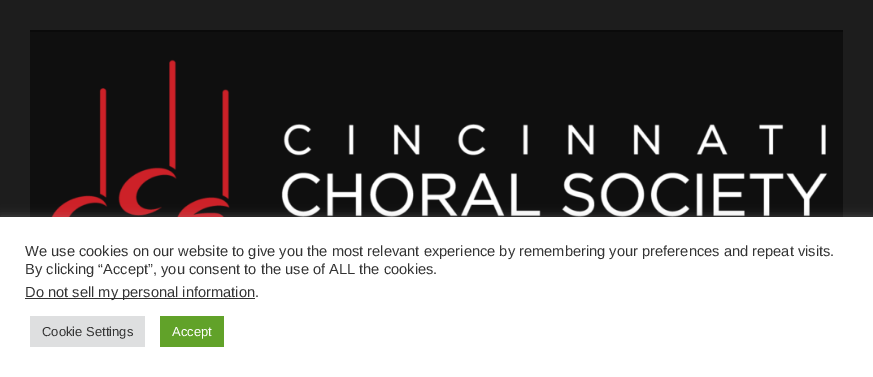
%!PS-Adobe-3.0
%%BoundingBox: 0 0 873 377
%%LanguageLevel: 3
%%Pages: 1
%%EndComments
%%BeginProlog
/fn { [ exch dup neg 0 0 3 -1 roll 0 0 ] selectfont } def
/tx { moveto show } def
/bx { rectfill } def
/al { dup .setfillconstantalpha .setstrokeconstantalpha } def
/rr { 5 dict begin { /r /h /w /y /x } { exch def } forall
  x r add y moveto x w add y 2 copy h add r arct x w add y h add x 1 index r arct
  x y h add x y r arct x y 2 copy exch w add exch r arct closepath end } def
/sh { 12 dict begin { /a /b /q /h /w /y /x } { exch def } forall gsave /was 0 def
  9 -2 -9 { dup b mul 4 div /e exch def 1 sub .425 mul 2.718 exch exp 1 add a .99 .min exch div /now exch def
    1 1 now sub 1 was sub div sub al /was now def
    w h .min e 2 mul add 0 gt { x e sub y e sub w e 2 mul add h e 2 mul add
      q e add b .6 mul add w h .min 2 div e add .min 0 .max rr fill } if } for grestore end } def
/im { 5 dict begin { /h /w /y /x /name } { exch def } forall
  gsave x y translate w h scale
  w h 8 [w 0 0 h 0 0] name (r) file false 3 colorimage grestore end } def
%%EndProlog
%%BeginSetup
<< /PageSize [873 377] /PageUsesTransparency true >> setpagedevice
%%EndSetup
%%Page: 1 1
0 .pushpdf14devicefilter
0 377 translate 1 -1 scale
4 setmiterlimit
0.114 setgray
0 0 873 377 bx
0.059 setgray
30 32 813 185 bx
0.039 setgray
30 30 813 2 bx
(image0.raw) 51 59 777 158 im
0.675 0.671 0.671 setrgbcolor
0 216 873 160 0 5 0.3 sh
1 setgray
0 217 873 160 bx
/LiberationSans-Regular 14.67 fn
0.2 setgray
(We use cookies on our website to give you the most relevant experience by remembering your preferences and repeat visits.) 25 256 tx
(By clicking “Accept”, you consent to the use of ALL the cookies.) 25 274 tx
25 298 230 1 bx
(Do not sell my personal information.) 25 297 tx
0.871 0.875 0.878 setrgbcolor
30 316 115 31 bx
/LiberationSans-Regular 13 fn
0.2 setgray
(Cookie Settings) 42 336 tx
0.38 0.635 0.161 setrgbcolor
160 316 64 31 bx
1 setgray
(Accept) 172 336 tx
.poppdf14devicefilter showpage
%%EOF
